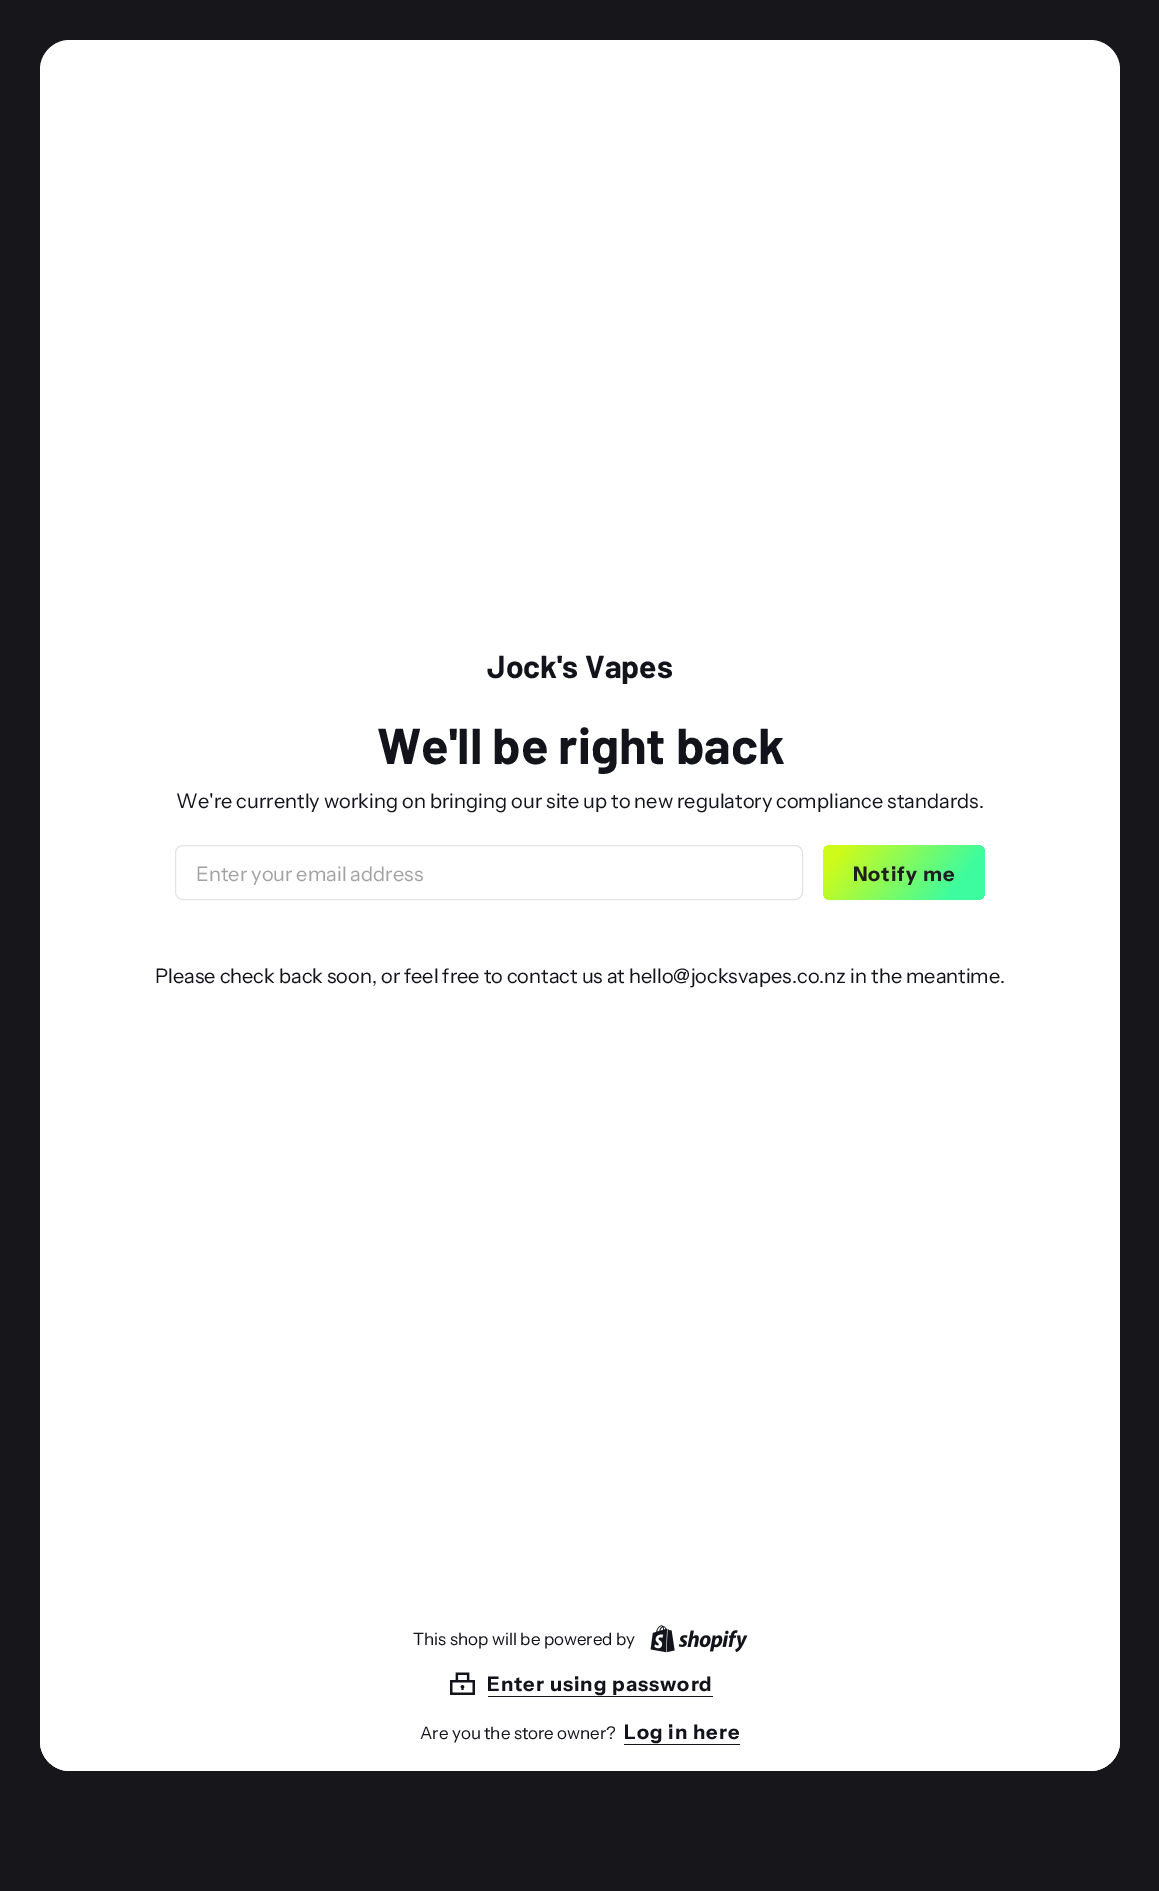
%!PS-Adobe-3.0
%%BoundingBox: 0 0 1159 1891
%%LanguageLevel: 3
%%Pages: 1
%%EndComments
%%BeginProlog
/m { moveto } bind def
/l { lineto } bind def
/c { curveto } bind def
/h { closepath } bind def
/f { fill } bind def
/S { stroke } bind def
/q { gsave } bind def
/Q { grestore } bind def
/fn { [ exch dup neg 0 0 3 -1 roll 0 0 ] selectfont } def
/tx { moveto show } def
/bx { rectfill } def
/al { dup .setfillconstantalpha .setstrokeconstantalpha } def
/rr { 5 dict begin { /r /h /w /y /x } { exch def } forall
  x r add y moveto x w add y 2 copy h add r arct x w add y h add x 1 index r arct
  x y h add x y r arct x y 2 copy exch w add exch r arct closepath end } def
/im { 5 dict begin { /h /w /y /x /name } { exch def } forall
  gsave x y translate w h scale
  w h 8 [w 0 0 h 0 0] name (r) file false 3 colorimage grestore end } def
%%EndProlog
%%BeginSetup
<< /PageSize [1159 1891] /PageUsesTransparency true >> setpagedevice
%%EndSetup
%%Page: 1 1
0 .pushpdf14devicefilter
0 1891 translate 1 -1 scale
4 setmiterlimit
0.09 0.086 0.102 setrgbcolor
0 0 1159 1891 bx
1 setgray
40 40 1080 1731 30 rr f
0.3 al
40 40 1080 1731 30 rr f
/Barlow-Bold 31.75 fn
1 al
0.075 0.078 0.106 setrgbcolor
(Jock's Vapes) 487 678 tx
/Barlow-Bold 50.5 fn
(We'll be right back) 377 764 tx
/InstrumentSans-Regular 20 fn
(We're currently working on bringing our site up to new regulatory compliance standards.) 176 808 tx
0.89 0.89 0.894 setrgbcolor
175.5 845.5 627 54 7.5 rr S
0.635 0.635 0.639 setrgbcolor
(Enter your email address) 196 881 tx
q 823 845 162 55 8 rr clip newpath
<< /ShadingType 2 /ColorSpace /DeviceRGB /Coords [839 823 969 922] /Extend [true true] /Function << /FunctionType 3 /Domain [0 1] /Functions [<< /FunctionType 2 /Domain [0 1] /C0 [0.808 0.984 0.102] /C1 [0.808 0.984 0.102] /N 1 >> << /FunctionType 2 /Domain [0 1] /C0 [0.808 0.984 0.102] /C1 [0.239 0.988 0.624] /N 1 >> << /FunctionType 2 /Domain [0 1] /C0 [0.239 0.988 0.624] /C1 [0.239 0.988 0.624] /N 1 >>] /Bounds [0.11 0.81] /Encode [0 1 0 1 0 1] >> >> shfill Q
/InstrumentSans-Bold 20 fn
0.122 0.122 0.129 setrgbcolor
853 881 m 1 0 (Notify me) ashow
/InstrumentSans-Regular 20 fn
0.075 0.078 0.106 setrgbcolor
(Please check back soon, or feel free to contact us at hello@jocksvapes.co.nz in the meantime.) 155 983 tx
1 setgray
40 1601 m 1120 1601 l 1120 1741 l 1120 1757.5 1106.5 1771 1090 1771 c 70 1771 l 53.5 1771 40 1757.5 40 1741 c h f
/InstrumentSans-Regular 17 fn
0.075 0.078 0.106 setrgbcolor
(This shop will be powered by) 413 1645 tx
(image0.raw) 650 1625 98 28 im
(image1.raw) 450 1672 25 23 im
/InstrumentSans-Bold 20 fn
487 1691 m 1 0 (Enter using password) ashow
488 1696 225 1 bx
/InstrumentSans-Regular 17 fn
(Are you the store owner?) 420 1739 tx
/InstrumentSans-Bold 20 fn
624 1739 m 1 0 (Log in here) ashow
624 1744 116 1 bx
.poppdf14devicefilter showpage
%%EOF
